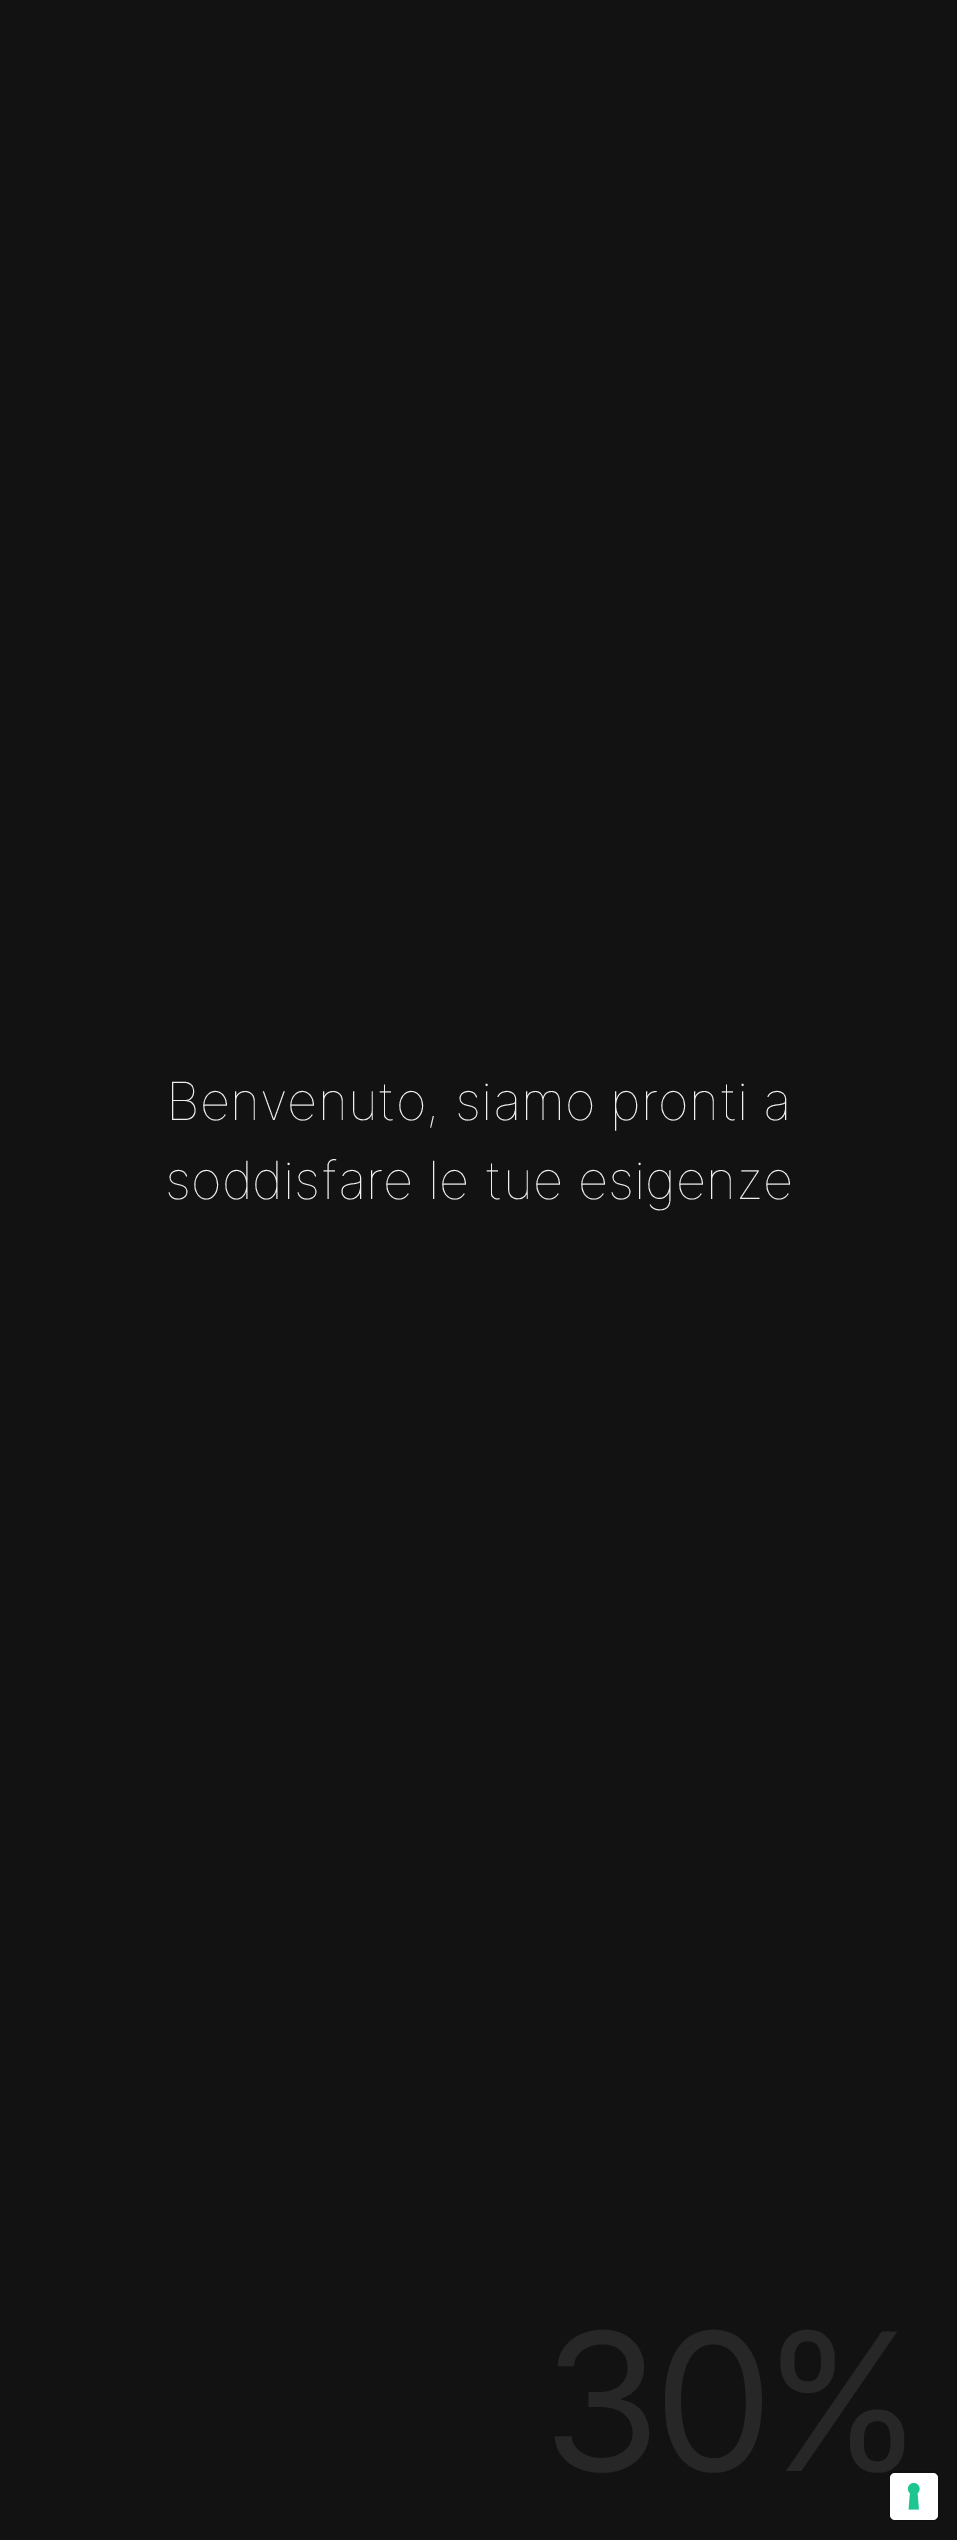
%!PS-Adobe-3.0
%%BoundingBox: 0 0 957 2540
%%LanguageLevel: 3
%%Pages: 1
%%EndComments
%%BeginProlog
/f { fill } bind def
/S { stroke } bind def
/fn { [ exch dup neg 0 0 3 -1 roll 0 0 ] selectfont } def
/tx { moveto show } def
/bx { rectfill } def
/rr { 5 dict begin { /r /h /w /y /x } { exch def } forall
  x r add y moveto x w add y 2 copy h add r arct x w add y h add x 1 index r arct
  x y h add x y r arct x y 2 copy exch w add exch r arct closepath end } def
/im { 5 dict begin { /h /w /y /x /name } { exch def } forall
  gsave x y translate w h scale
  w h 8 [w 0 0 h 0 0] name (r) file false 3 colorimage grestore end } def
%%EndProlog
%%BeginSetup
<< /PageSize [957 2540] >> setpagedevice
%%EndSetup
%%Page: 1 1
0 2540 translate 1 -1 scale
4 setmiterlimit
0.071 setgray
0 0 957 2540 bx
/InterTight-Thin 52.7 fn
0.937 setgray
(Benvenuto, siamo pronti a) 166 1120 tx
(soddisfare le tue esigenze) 165 1199 tx
/InterTight-Regular 192 fn
0.153 setgray
(30%) 545 2471 tx
0.059 setgray
889.5 2471.5 49 49 5.5 rr S
1 setgray
890 2473 48 47 5 rr f
(image0.raw) 907 2482 13 28 im
showpage
%%EOF
